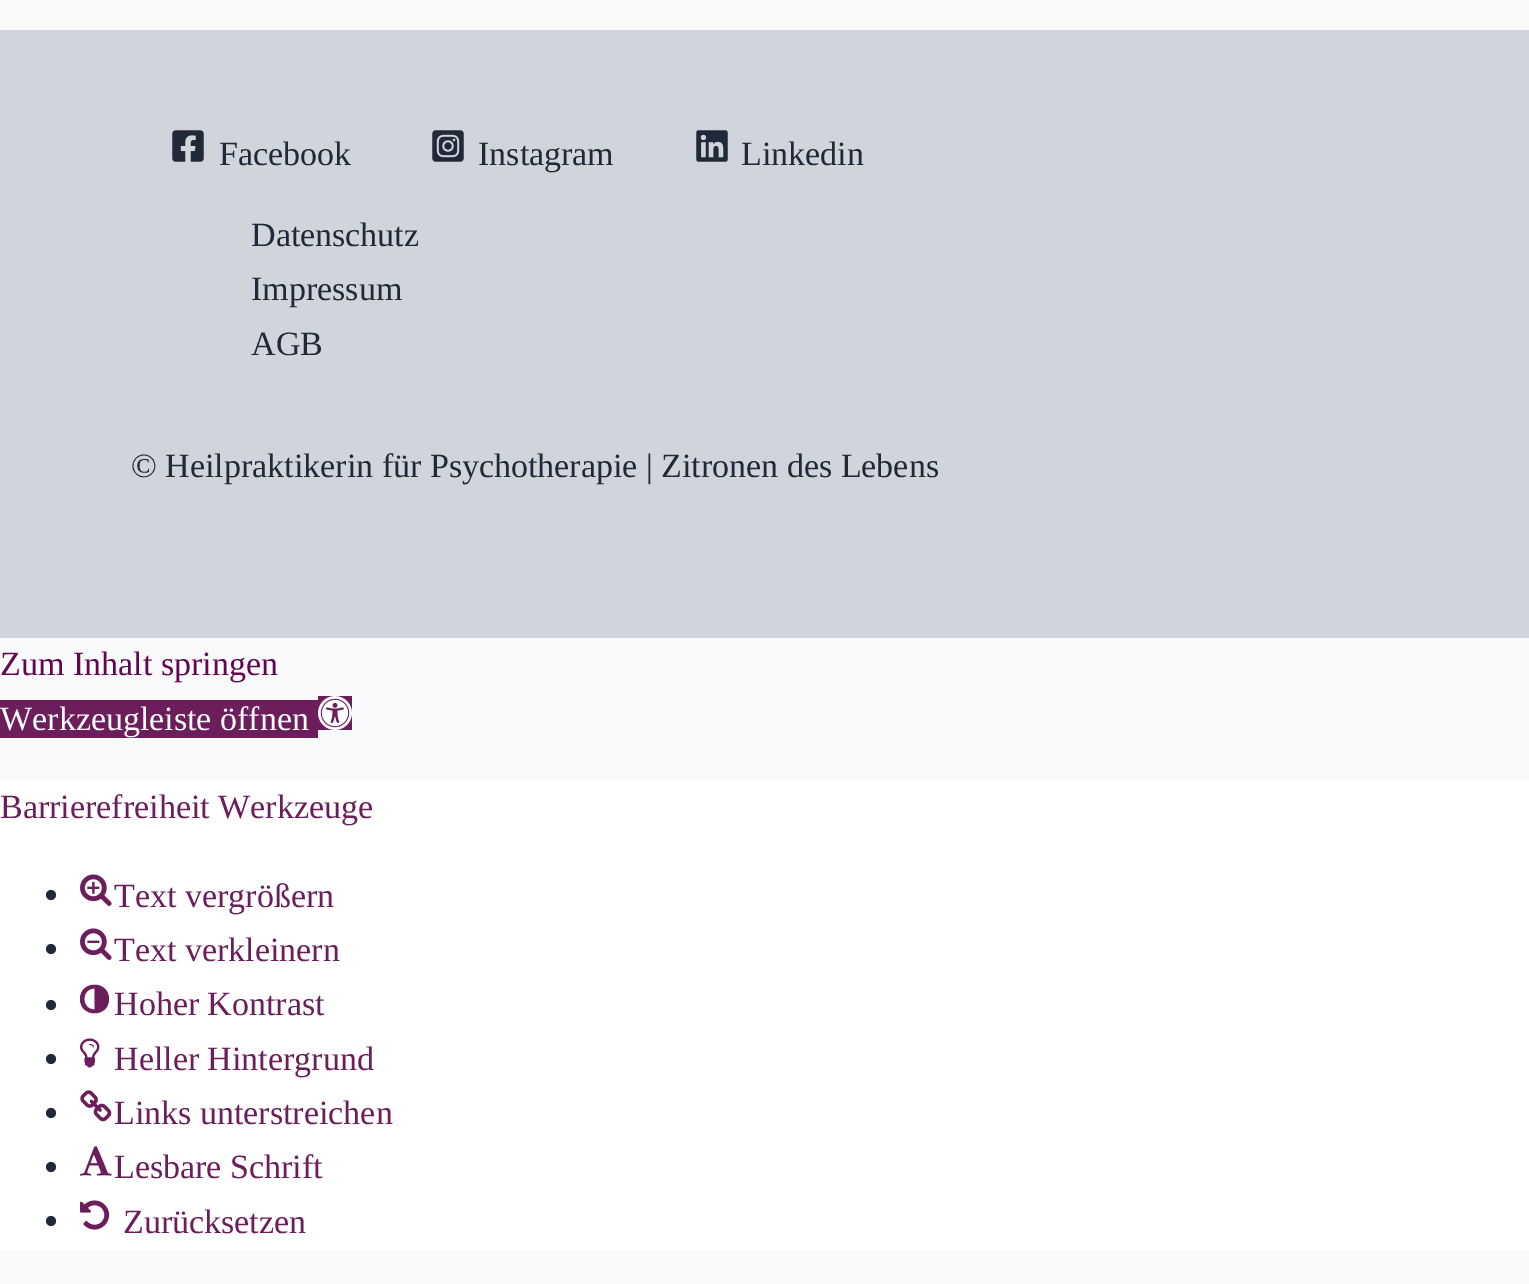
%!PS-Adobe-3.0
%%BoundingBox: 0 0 1529 1284
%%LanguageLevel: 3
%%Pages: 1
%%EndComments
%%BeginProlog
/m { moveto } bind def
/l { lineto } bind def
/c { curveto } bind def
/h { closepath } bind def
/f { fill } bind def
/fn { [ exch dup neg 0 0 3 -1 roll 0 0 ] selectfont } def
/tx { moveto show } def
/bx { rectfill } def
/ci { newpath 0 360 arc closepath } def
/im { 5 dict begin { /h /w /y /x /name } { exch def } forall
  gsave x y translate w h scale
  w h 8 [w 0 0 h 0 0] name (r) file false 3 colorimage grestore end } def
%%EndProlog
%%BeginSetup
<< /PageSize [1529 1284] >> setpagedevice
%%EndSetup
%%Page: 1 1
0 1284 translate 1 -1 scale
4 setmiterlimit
0.976 0.98 0.984 setrgbcolor
0 0 1529 1284 bx
0.82 0.835 0.859 setrgbcolor
0 30 1529 608 bx
(image0.raw) 172 130 32 32 im
/LiberationSerif-Regular 34 fn
0.122 0.161 0.216 setrgbcolor
(Facebook) 219 165 tx
(image1.raw) 432 130 32 32 im
(Instagram) 478 165 tx
(image2.raw) 696 130 32 32 im
(Linkedin) 741 165 tx
(Datenschutz) 251 246 tx
(Impressum) 251 300 tx
(AGB) 251 355 tx
(© Heilpraktikerin für Psychotherapie | Zitronen des Lebens) 131 477 tx
0.388 0.02 0.314 setrgbcolor
(Zum Inhalt springen) 0 675 tx
0.42 0.118 0.357 setrgbcolor
0 700 318 38 bx
1 setgray
(Werkzeugleiste öffnen) 0 730 tx
0.42 0.118 0.357 setrgbcolor
318 696 34 34 bx
(image3.raw) 318 696 34 34 im
1 setgray
0 780 1529 470 bx
0.42 0.118 0.357 setrgbcolor
(Barrierefreiheit Werkzeuge) 0 818 tx
0.122 0.161 0.216 setrgbcolor
51 895 5 ci f
(image4.raw) 80 874 32 32 im
0.42 0.118 0.357 setrgbcolor
(Text vergrößern) 114 907 tx
0.122 0.161 0.216 setrgbcolor
51 949 5 ci f
(image5.raw) 80 928 32 32 im
0.42 0.118 0.357 setrgbcolor
(Text verkleinern) 114 961 tx
0.122 0.161 0.216 setrgbcolor
51 1005 5 ci f
0.42 0.118 0.357 setrgbcolor
(Hoher Kontrast) 114 1015 tx
94.5 1009.5 m 94.5 988.5 l 81 988.5 81 1009.5 94.5 1009.5 c h 109 999 m 109 1018 80 1018 80 999 c 80 980 109 980 109 999 c h f
0.122 0.161 0.216 setrgbcolor
51 1059 5 ci f
(image6.raw) 80 1038 20 30 im
0.42 0.118 0.357 setrgbcolor
(Heller Hintergrund) 114 1070 tx
0.122 0.161 0.216 setrgbcolor
51 1113 5 ci f
(image7.raw) 80 1090 32 32 im
0.42 0.118 0.357 setrgbcolor
(Links unterstreichen) 114 1124 tx
0.122 0.161 0.216 setrgbcolor
51 1167 5 ci f
(image8.raw) 80 1146 32 30 im
0.42 0.118 0.357 setrgbcolor
(Lesbare Schrift) 114 1178 tx
0.122 0.161 0.216 setrgbcolor
51 1221 5 ci f
(image9.raw) 80 1200 30 30 im
0.42 0.118 0.357 setrgbcolor
(Zurücksetzen) 123 1233 tx
showpage
%%EOF
